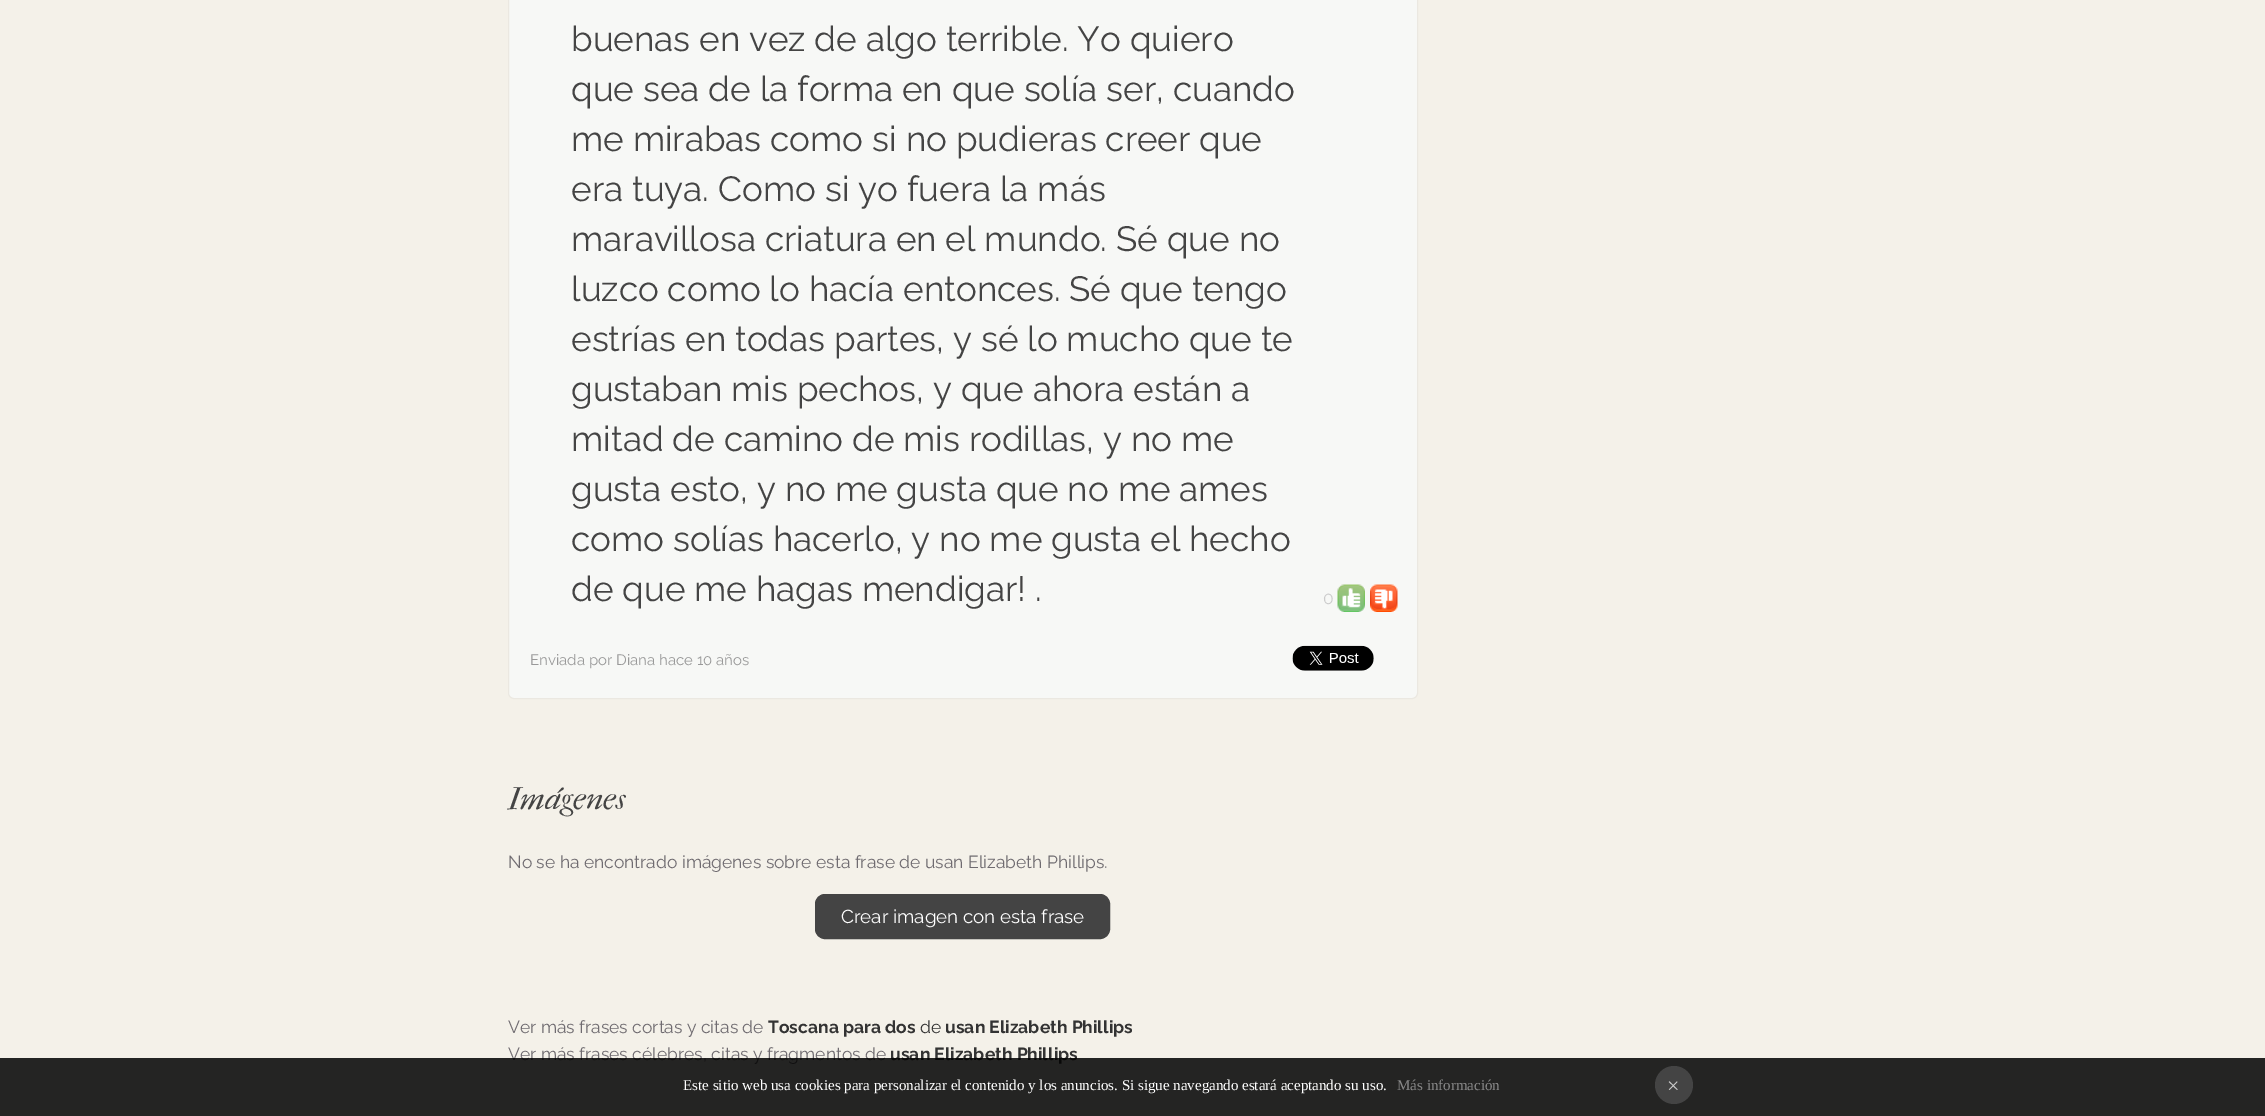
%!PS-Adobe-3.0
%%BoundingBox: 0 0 2265 1116
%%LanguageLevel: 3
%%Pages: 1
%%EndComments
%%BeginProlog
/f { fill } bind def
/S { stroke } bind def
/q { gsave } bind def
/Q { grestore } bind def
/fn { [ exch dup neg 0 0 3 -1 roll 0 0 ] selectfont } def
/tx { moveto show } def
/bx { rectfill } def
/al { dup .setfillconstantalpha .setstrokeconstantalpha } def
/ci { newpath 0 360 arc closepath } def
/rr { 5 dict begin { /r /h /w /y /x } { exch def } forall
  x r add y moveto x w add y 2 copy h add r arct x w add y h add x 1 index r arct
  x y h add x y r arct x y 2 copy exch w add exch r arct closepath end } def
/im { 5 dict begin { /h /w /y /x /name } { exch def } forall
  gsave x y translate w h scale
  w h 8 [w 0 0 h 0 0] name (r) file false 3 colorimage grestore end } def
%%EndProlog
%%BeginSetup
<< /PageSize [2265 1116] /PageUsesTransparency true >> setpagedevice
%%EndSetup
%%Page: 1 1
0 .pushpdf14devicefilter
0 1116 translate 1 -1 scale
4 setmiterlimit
0.957 0.945 0.914 setrgbcolor
0 0 2265 1116 bx
0.969 0.973 0.965 setrgbcolor
508.5 -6.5 909 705 5.5 rr q f Q
0.922 0.91 0.882 setrgbcolor
S
/Raleway-Regular 35 fn
0.267 setgray
(buenas en vez de algo terrible. Yo quiero) 571 51 tx
(que sea de la forma en que solía ser, cuando) 571 101 tx
(me mirabas como si no pudieras creer que) 571 151 tx
(era tuya. Como si yo fuera la más) 571 201 tx
(maravillosa criatura en el mundo. Sé que no) 571 251 tx
(luzco como lo hacía entonces. Sé que tengo) 571 301 tx
(estrías en todas partes, y sé lo mucho que te) 571 351 tx
(gustaban mis pechos, y que ahora están a) 571 401 tx
(mitad de camino de mis rodillas, y no me) 571 451 tx
(gusta esto, y no me gusta que no me ames) 571 501 tx
(como solías hacerlo, y no me gusta el hecho) 571 551 tx
(de que me hagas mendigar! .) 571 601 tx
/Raleway-Regular 17.5 fn
0.8 setgray
(0) 1323 604 tx
(image0.raw) 1337 584 28 28 im
(image1.raw) 1370 584 28 28 im
/Raleway-Regular 15 fn
0.6 setgray
(Enviada por Diana hace 10 años) 530 665 tx
(image2.raw) 1292 645 82 26 im
/IMFELLFrenchCanon-Italic 31 fn
0.267 setgray
(Imágenes) 508 809 tx
/Raleway-Regular 17.5 fn
0.435 0.42 0.439 setrgbcolor
(No se ha encontrado imágenes sobre esta frase de usan Elizabeth Phillips.) 508 868 tx
0.267 setgray
815.5 894.5 294 44 9.5 rr q f Q
S
/Raleway-Regular 18.75 fn
1 setgray
(Crear imagen con esta frase) 841 923 tx
/Raleway-Regular 17.5 fn
0.435 0.42 0.439 setrgbcolor
(Ver más frases cortas y citas de) 508 1033 tx
/Raleway-Bold 17.5 fn
0.2 setgray
(Toscana para dos) 768 1033 tx
/Raleway-Regular 17.5 fn
(de) 920 1033 tx
/Raleway-Bold 17.5 fn
(usan Elizabeth Phillips) 945 1033 tx
/Raleway-Regular 17.5 fn
0.435 0.42 0.439 setrgbcolor
(Ver más frases célebres, citas y fragmentos de) 508 1060 tx
/Raleway-Bold 17.5 fn
0.2 setgray
(usan Elizabeth Phillips) 890 1060 tx
0.85 al
0 setgray
0 1058 2265 58 bx
/LiberationSerif-Regular 15 fn
1 al
1 setgray
(Este sitio web usa cookies para personalizar el contenido y los anuncios. Si sigue navegando estará aceptando su uso.) 683 1090 tx
0.533 setgray
(Más información) 1397 1090 tx
0.267 setgray
1674 1085 19 ci f
/LiberationSerif-Regular 22 fn
0.8 setgray
(×) 1667 1093 tx
.poppdf14devicefilter showpage
%%EOF
